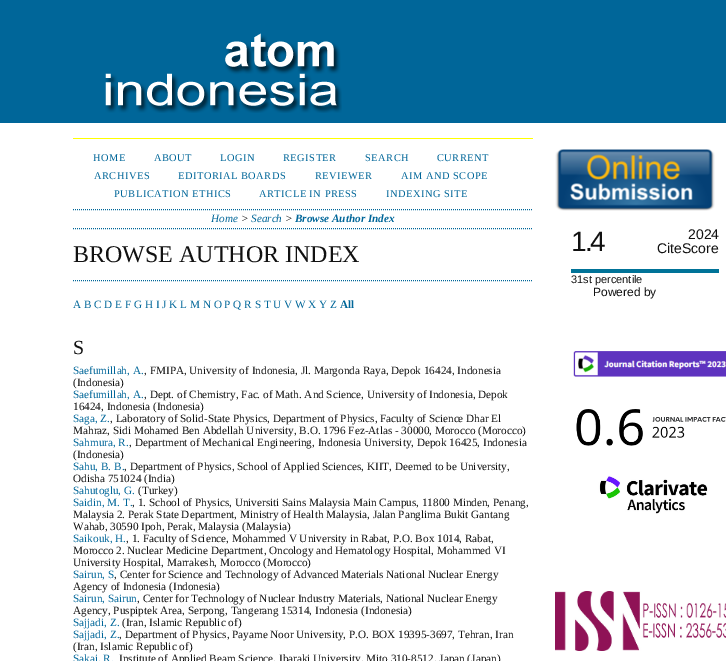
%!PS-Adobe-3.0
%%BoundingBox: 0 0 726 661
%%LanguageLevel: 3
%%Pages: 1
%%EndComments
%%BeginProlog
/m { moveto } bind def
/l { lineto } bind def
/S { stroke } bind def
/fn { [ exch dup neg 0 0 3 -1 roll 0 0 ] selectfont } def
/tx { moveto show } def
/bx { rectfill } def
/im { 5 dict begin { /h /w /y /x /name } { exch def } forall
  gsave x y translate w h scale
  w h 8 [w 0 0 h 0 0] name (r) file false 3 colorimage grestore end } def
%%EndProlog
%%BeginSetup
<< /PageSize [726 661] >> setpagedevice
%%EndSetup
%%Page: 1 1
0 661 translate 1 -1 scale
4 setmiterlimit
1 setgray
0 0 726 661 bx
0 0.4 0.6 setrgbcolor
0 0 726 123 bx
(image0.raw) 105 33 237 80 im
1 1 0 setrgbcolor
73 138 460 1 bx
0 0.4 0.6 setrgbcolor
[1 1] 0 setdash
73 209.5 m 533 209.5 l S
/LiberationSerif-Regular 10.4 fn
93 161 m 0.5 0 (HOME) ashow
154 161 m 0.5 0 (ABOUT) ashow
220 161 m 0.5 0 (LOGIN) ashow
283 161 m 0.5 0 (REGISTER) ashow
365 161 m 0.5 0 (SEARCH) ashow
437 161 m 0.5 0 (CURRENT) ashow
94 179 m 0.5 0 (ARCHIVES) ashow
178 179 m 0.5 0 (EDITORIAL BOARDS) ashow
315 179 m 0.5 0 (REVIEWER) ashow
401 179 m 0.5 0 (AIM AND SCOPE) ashow
114 197 m 0.5 0 (PUBLICATION ETHICS) ashow
259 197 m 0.5 0 (ARTICLE IN PRESS) ashow
386 197 m 0.5 0 (INDEXING SITE) ashow
73 228.5 m 533 228.5 l S
/LiberationSerif-Italic 11.2 fn
(Home) 211 222 tx
0.067 setgray
(>) 241 222 tx
0 0.4 0.6 setrgbcolor
(Search) 251 222 tx
0.067 setgray
(>) 285 222 tx
/LiberationSerif-BoldItalic 11.2 fn
0 0.4 0.6 setrgbcolor
(Browse Author Index) 295 222 tx
/LiberationSerif-Regular 24 fn
0.067 setgray
(BROWSE AUTHOR INDEX) 73 262 tx
0 0.4 0.6 setrgbcolor
73 280.5 m 533 280.5 l S
/LiberationSerif-Regular 11.2 fn
(A B C D E F G H I J K L M N O P Q R S T U V W X Y Z) 73 308 tx
/LiberationSerif-Bold 11.2 fn
(All) 340 308 tx
/LiberationSerif-Regular 20 fn
0.067 setgray
(S) 73 354 tx
/LiberationSerif-Regular 11.2 fn
0 0.4 0.6 setrgbcolor
(Saefumillah, A.) 73 374 tx
0.067 setgray
(, FMIPA, University of Indonesia, Jl. Margonda Raya, Depok 16424, Indonesia) 144 374 tx
(\(Indonesia\)) 73 386 tx
0 0.4 0.6 setrgbcolor
(Saefumillah, A.) 73 398 tx
0.067 setgray
(, Dept. of Chemistry, Fac. of Math. And Science, University of Indonesia, Depok) 144 398 tx
(16424, Indonesia \(Indonesia\)) 73 410 tx
0 0.4 0.6 setrgbcolor
(Saga, Z.) 73 422 tx
0.067 setgray
(, Laboratory of Solid-State Physics, Department of Physics, Faculty of Science Dhar El) 110 422 tx
(Mahraz, Sidi Mohamed Ben Abdellah University, B.O. 1796 Fez-Atlas - 30000, Morocco \(Morocco\)) 73 434 tx
0 0.4 0.6 setrgbcolor
(Sahmura, R.) 73 446 tx
0.067 setgray
(, Department of Mechanical Engineering, Indonesia University, Depok 16425, Indonesia) 129 446 tx
(\(Indonesia\)) 73 458 tx
0 0.4 0.6 setrgbcolor
(Sahu, B. B.) 73 470 tx
0.067 setgray
(, Department of Physics, School of Applied Sciences, KIIT, Deemed to be University,) 124 470 tx
(Odisha 751024 \(India\)) 73 482 tx
0 0.4 0.6 setrgbcolor
(Sahutoglu, G.) 73 494 tx
0.067 setgray
(\(Turkey\)) 138 494 tx
0 0.4 0.6 setrgbcolor
(Saidin, M. T.) 73 506 tx
0.067 setgray
(, 1. School of Physics, Universiti Sains Malaysia Main Campus, 11800 Minden, Penang,) 132 506 tx
(Malaysia 2. Perak State Department, Ministry of Health Malaysia, Jalan Panglima Bukit Gantang) 73 518 tx
(Wahab, 30590 Ipoh, Perak, Malaysia \(Malaysia\)) 73 530 tx
0 0.4 0.6 setrgbcolor
(Saikouk, H.) 73 542 tx
0.067 setgray
(, 1. Faculty of Science, Mohammed V University in Rabat, P.O. Box 1014, Rabat,) 126 542 tx
(Morocco 2. Nuclear Medicine Department, Oncology and Hematology Hospital, Mohammed VI) 73 554 tx
(University Hospital, Marrakesh, Morocco \(Morocco\)) 73 566 tx
0 0.4 0.6 setrgbcolor
(Sairun, S) 73 578 tx
0.067 setgray
(, Center for Science and Technology of Advanced Materials National Nuclear Energy) 114 578 tx
(Agency of Indonesia \(Indonesia\)) 73 590 tx
0 0.4 0.6 setrgbcolor
(Sairun, Sairun) 73 602 tx
0.067 setgray
(, Center for Technology of Nuclear Industry Materials, National Nuclear Energy) 137 602 tx
(Agency, Puspiptek Area, Serpong, Tangerang 15314, Indonesia \(Indonesia\)) 73 614 tx
0 0.4 0.6 setrgbcolor
(Sajjadi, Z.) 73 626 tx
0.067 setgray
(\(Iran, Islamic Republic of\)) 122 626 tx
0 0.4 0.6 setrgbcolor
(Sajjadi, Z.) 73 638 tx
0.067 setgray
(, Department of Physics, Payame Noor University, P.O. BOX 19395-3697, Tehran, Iran) 119 638 tx
(\(Iran, Islamic Republic of\)) 73 650 tx
0 0.4 0.6 setrgbcolor
(Sakai, R.) 73 662 tx
0.067 setgray
(Institute of Applied Beam Science, Ibaraki University, Mito 310-8512, Japan \(Japan\)) 119 662 tx
(image1.raw) 555 149 160 62 im
/LiberationSans-Regular 28 fn
571 251 m -2 0 (1.4) ashow
/LiberationSans-Regular 14 fn
(2024) 688 239 tx
(CiteScore) 657 253 tx
0 0.451 0.596 setrgbcolor
571 269 148 4 bx
/LiberationSans-Regular 11 fn
0.067 setgray
(31st percentile) 571 283 tx
/LiberationSans-Regular 12 fn
(Powered by) 593 296 tx
(image2.raw) 573 351 153 163 im
(image3.raw) 555 591 171 60 im
showpage
%%EOF
